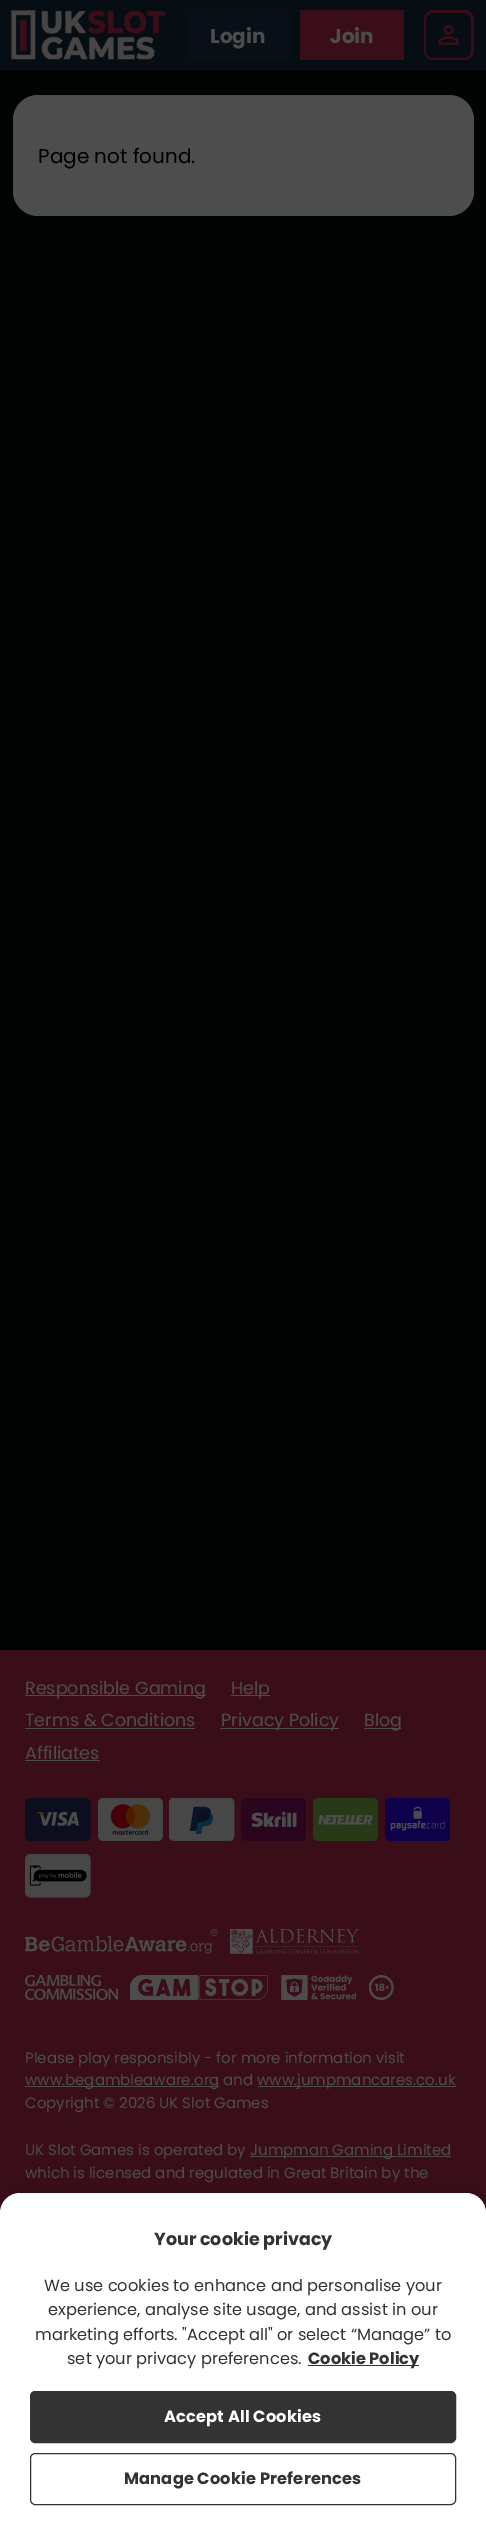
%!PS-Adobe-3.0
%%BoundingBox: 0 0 486 2534
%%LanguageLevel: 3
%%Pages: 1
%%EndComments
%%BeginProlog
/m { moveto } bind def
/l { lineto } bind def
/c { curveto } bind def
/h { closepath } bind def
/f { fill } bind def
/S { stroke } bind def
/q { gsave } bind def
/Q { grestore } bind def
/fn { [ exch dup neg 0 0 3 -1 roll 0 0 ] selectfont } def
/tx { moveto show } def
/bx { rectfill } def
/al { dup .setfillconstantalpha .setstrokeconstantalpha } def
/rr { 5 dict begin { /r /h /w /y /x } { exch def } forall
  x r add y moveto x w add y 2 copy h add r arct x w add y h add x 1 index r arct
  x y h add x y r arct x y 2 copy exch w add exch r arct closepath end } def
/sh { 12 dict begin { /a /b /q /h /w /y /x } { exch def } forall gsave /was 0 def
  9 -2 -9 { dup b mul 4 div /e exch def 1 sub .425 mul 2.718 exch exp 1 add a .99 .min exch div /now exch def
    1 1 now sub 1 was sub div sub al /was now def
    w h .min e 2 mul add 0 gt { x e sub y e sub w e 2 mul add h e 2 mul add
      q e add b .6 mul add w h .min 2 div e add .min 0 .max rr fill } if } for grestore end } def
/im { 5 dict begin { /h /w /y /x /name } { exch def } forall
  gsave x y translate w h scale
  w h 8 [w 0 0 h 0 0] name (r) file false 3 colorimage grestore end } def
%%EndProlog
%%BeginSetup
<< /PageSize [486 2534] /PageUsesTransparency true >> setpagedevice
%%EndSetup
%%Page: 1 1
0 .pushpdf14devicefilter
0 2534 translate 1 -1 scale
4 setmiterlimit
0 0.016 0.008 setrgbcolor
0 0 486 2534 bx
0.024 0.051 0.075 setrgbcolor
0 0 486 70 bx
(image0.raw) 11 10 155 50 im
0.031 0.059 0.086 setrgbcolor
186 10 104 50 bx
/Poppins-Bold 20 fn
0.302 setgray
(Login) 210 43 tx
0.227 0.055 0.094 setrgbcolor
300 10 104 50 bx
0.302 setgray
(Join) 330 43 tx
0.227 0.055 0.094 setrgbcolor
424 10 50 50 10 rr f
0.024 0.051 0.075 setrgbcolor
426 13 45 45 8 rr f
(image1.raw) 438 25 21 20 im
0.302 setgray
13 95 461 121 25 rr f
/Poppins-Regular 20 fn
0 setgray
(Page not found.) 38 163 tx
0.227 0.055 0.094 setrgbcolor
0 1650 486 563 bx
0.302 setgray
25 1695 181 1 bx
/Poppins-Regular 17.5 fn
(Responsible Gaming) 25 1694 tx
231 1695 39 1 bx
(Help) 231 1694 tx
(Terms & Conditions) 25 1726 tx
25 1728 170 1 bx
220 1728 119 1 bx
(Privacy Policy) 221 1726 tx
364 1728 37 1 bx
(Blog) 364 1726 tx
(Affiliates) 25 1759 tx
25 1760 75 1 bx
(image2.raw) 25 1798 66 43 im
(image3.raw) 98 1798 65 43 im
(image4.raw) 169 1798 66 43 im
(image5.raw) 241 1798 65 43 im
(image6.raw) 313 1798 65 43 im
(image7.raw) 385 1798 65 43 im
(image8.raw) 25 1854 66 44 im
(image9.raw) 25 1929 193 25 im
(image10.raw) 230 1929 129 25 im
(image11.raw) 25 1975 93 25 im
(image12.raw) 130 1975 139 25 im
(image13.raw) 281 1975 75 25 im
(image14.raw) 369 1975 25 25 im
/Poppins-Regular 15 fn
(Please play responsibly - for more information visit) 25 2063 tx
25 2086 194 1 bx
(www.begambleaware.org and) 25 2085 tx
258 2086 198 1 bx
(www.jumpmancares.co.uk) 257 2085 tx
(Copyright © 2026 UK Slot Games) 25 2108 tx
(UK Slot Games is operated by) 25 2155 tx
250 2156 201 1 bx
(Jumpman Gaming Limited) 250 2155 tx
(which is licensed and regulated in Great Britain by the) 25 2178 tx
0 setgray
0 2193 486 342 20 11 0.2 sh
1 setgray
20 2193 m 466 2193 l 477 2193 486 2202 486 2213 c 486 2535 l 0 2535 l 0 2213 l 0 2202 9 2193 20 2193 c h f
/Poppins-Bold 17.5 fn
0.2 setgray
(Your cookie privacy) 154 2245 tx
/Poppins-Regular 16.25 fn
(We use cookies to enhance and personalise your) 44 2291 tx
(experience, analyse site usage, and assist in our) 48 2315 tx
(marketing efforts. "Accept all" or select “Manage” to) 35 2340 tx
(set your privacy preferences.) 67 2364 tx
308 2365 111 1 bx
/Poppins-Bold 16.25 fn
(Cookie Policy) 308 2364 tx
30.5 2391.5 425 51 4.5 rr q f Q
S
1 setgray
164 2422 m 0.15 0 (Accept All Cookies) ashow
0.2 setgray
30.5 2453.5 425 51 4.5 rr S
124 2484 m 0.15 0 (Manage Cookie Preferences) ashow
.poppdf14devicefilter showpage
%%EOF
